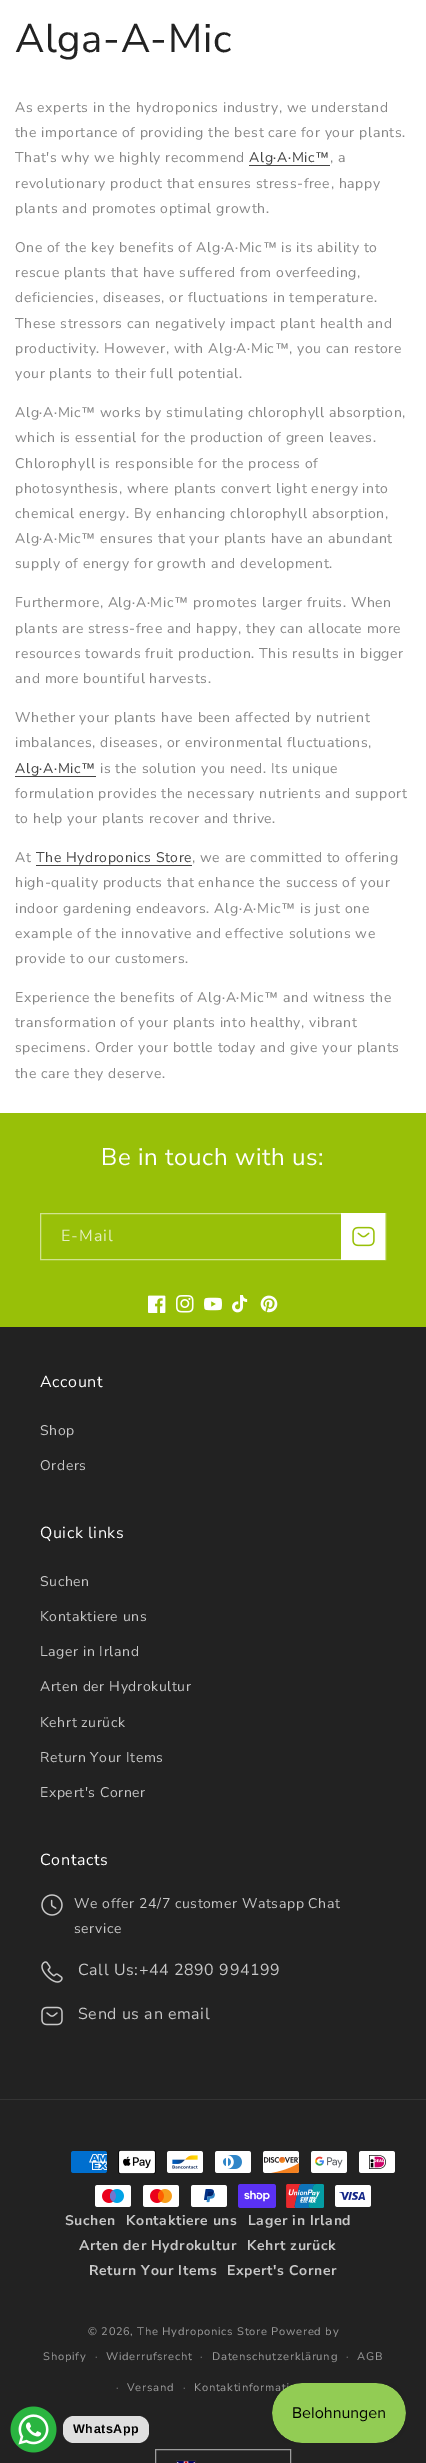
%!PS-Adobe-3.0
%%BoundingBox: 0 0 426 2463
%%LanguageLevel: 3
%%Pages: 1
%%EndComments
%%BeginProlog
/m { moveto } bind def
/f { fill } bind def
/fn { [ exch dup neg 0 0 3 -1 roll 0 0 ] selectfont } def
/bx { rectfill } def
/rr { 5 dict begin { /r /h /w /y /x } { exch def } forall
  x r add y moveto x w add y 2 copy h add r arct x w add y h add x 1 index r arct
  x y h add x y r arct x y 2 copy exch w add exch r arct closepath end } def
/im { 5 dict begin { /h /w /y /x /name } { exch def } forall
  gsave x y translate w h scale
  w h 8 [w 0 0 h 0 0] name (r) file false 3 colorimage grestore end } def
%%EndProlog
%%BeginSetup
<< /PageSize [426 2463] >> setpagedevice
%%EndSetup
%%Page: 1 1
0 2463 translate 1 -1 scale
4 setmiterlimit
1 setgray
0 0 426 2463 bx
/NunitoSans-Regular 40 fn
0.133 setgray
15 52 m 0.6 0 (Alga-A-Mic) ashow
/NunitoSans-Regular 14 fn
0.522 setgray
15 112 m 0.6 0 (As experts in the hydroponics industry, we understand) ashow
15 137 m 0.6 0 (the importance of providing the best care for your plants.) ashow
15 162 m 0.6 0 (That's why we highly recommend) ashow
0.263 setgray
249 162 m 0.6 0 (Alg·A·Mic) ashow
249 165 81 1 bx
/LiberationSans-Regular 14 fn
315 162 m 0.6 0 (™) ashow
/NunitoSans-Regular 14 fn
0.522 setgray
330 162 m 0.6 0 (, a) ashow
15 188 m 0.6 0 (revolutionary product that ensures stress-free, happy) ashow
15 213 m 0.6 0 (plants and promotes optimal growth.) ashow
15 252 m 0.6 0 (One of the key benefits of Alg·A·Mic) ashow
/LiberationSans-Regular 14 fn
263 252 m 0.6 0 (™) ashow
/NunitoSans-Regular 14 fn
281 252 m 0.6 0 (is its ability to) ashow
15 277 m 0.6 0 (rescue plants that have suffered from overfeeding,) ashow
15 302 m 0.6 0 (deficiencies, diseases, or fluctuations in temperature.) ashow
15 328 m 0.6 0 (These stressors can negatively impact plant health and) ashow
15 353 m 0.6 0 (productivity. However, with Alg·A·Mic) ashow
/LiberationSans-Regular 14 fn
275 353 m 0.6 0 (™) ashow
/NunitoSans-Regular 14 fn
289 353 m 0.6 0 (, you can restore) ashow
15 378 m 0.6 0 (your plants to their full potential.) ashow
15 417 m 0.6 0 (Alg·A·Mic) ashow
/LiberationSans-Regular 14 fn
81 417 m 0.6 0 (™) ashow
/NunitoSans-Regular 14 fn
100 417 m 0.6 0 (works by stimulating chlorophyll absorption,) ashow
15 442 m 0.6 0 (which is essential for the production of green leaves.) ashow
15 468 m 0.6 0 (Chlorophyll is responsible for the process of) ashow
15 493 m 0.6 0 (photosynthesis, where plants convert light energy into) ashow
15 518 m 0.6 0 (chemical energy. By enhancing chlorophyll absorption,) ashow
15 543 m 0.6 0 (Alg·A·Mic) ashow
/LiberationSans-Regular 14 fn
81 543 m 0.6 0 (™) ashow
/NunitoSans-Regular 14 fn
100 543 m 0.6 0 (ensures that your plants have an abundant) ashow
15 568 m 0.6 0 (supply of energy for growth and development.) ashow
15 607 m 0.6 0 (Furthermore, Alg·A·Mic) ashow
/LiberationSans-Regular 14 fn
174 607 m 0.6 0 (™) ashow
/NunitoSans-Regular 14 fn
193 607 m 0.6 0 (promotes larger fruits. When) ashow
15 633 m 0.6 0 (plants are stress-free and happy, they can allocate more) ashow
15 658 m 0.6 0 (resources towards fruit production. This results in bigger) ashow
15 683 m 0.6 0 (and more bountiful harvests.) ashow
15 722 m 0.6 0 (Whether your plants have been affected by nutrient) ashow
15 747 m 0.6 0 (imbalances, diseases, or environmental fluctuations,) ashow
0.263 setgray
15 773 m 0.6 0 (Alg·A·Mic) ashow
15 776 81 1 bx
/LiberationSans-Regular 14 fn
81 773 m 0.6 0 (™) ashow
/NunitoSans-Regular 14 fn
0.522 setgray
100 773 m 0.6 0 (is the solution you need. Its unique) ashow
15 798 m 0.6 0 (formulation provides the necessary nutrients and support) ashow
15 823 m 0.6 0 (to help your plants recover and thrive.) ashow
15 862 m 0.6 0 (At) ashow
0.263 setgray
36 862 m 0.6 0 (The Hydroponics Store) ashow
36 865 156 1 bx
0.522 setgray
192 862 m 0.6 0 (, we are committed to offering) ashow
15 887 m 0.6 0 (high-quality products that enhance the success of your) ashow
15 913 m 0.6 0 (indoor gardening endeavors. Alg·A·Mic) ashow
/LiberationSans-Regular 14 fn
281 913 m 0.6 0 (™) ashow
/NunitoSans-Regular 14 fn
300 913 m 0.6 0 (is just one) ashow
15 938 m 0.6 0 (example of the innovative and effective solutions we) ashow
15 963 m 0.6 0 (provide to our customers.) ashow
15 1002 m 0.6 0 (Experience the benefits of Alg·A·Mic) ashow
/LiberationSans-Regular 14 fn
264 1002 m 0.6 0 (™) ashow
/NunitoSans-Regular 14 fn
283 1002 m 0.6 0 (and witness the) ashow
15 1027 m 0.6 0 (transformation of your plants into healthy, vibrant) ashow
15 1052 m 0.6 0 (specimens. Order your bottle today and give your plants) ashow
15 1078 m 0.6 0 (the care they deserve.) ashow
0.596 0.753 0.031 setrgbcolor
0 1113 426 214 bx
/NunitoSans-Regular 24 fn
1 setgray
101 1165 m 0.6 0 (Be in touch with us:) ashow
0.82 0.89 0.565 setrgbcolor
40.5 1213.5 345 46 rectstroke
/NunitoSans-Regular 16 fn
0.898 0.937 0.757 setrgbcolor
61 1241 m 1 0 (E-Mail) ashow
1 setgray
341 1213 44 47 bx
(image0.raw) 352 1226 23 21 im
(image1.raw) 148 1295 18 18 im
(image2.raw) 176 1295 18 18 im
(image3.raw) 204 1297 18 14 im
(image4.raw) 232 1295 16 18 im
(image5.raw) 260 1295 18 18 im
0.133 setgray
0 1327 426 1136 bx
1 setgray
40 1387 m 0.6 0 (Account) ashow
/NunitoSans-Regular 14 fn
0.784 setgray
40 1435 m 0.6 0 (Shop) ashow
40 1470 m 0.6 0 (Orders) ashow
/NunitoSans-Regular 16 fn
1 setgray
40 1538 m 0.6 0 (Quick links) ashow
/NunitoSans-Regular 14 fn
0.784 setgray
40 1586 m 0.6 0 (Suchen) ashow
40 1621 m 0.6 0 (Kontaktiere uns) ashow
40 1656 m 0.6 0 (Lager in Irland) ashow
40 1691 m 0.6 0 (Arten der Hydrokultur) ashow
40 1727 m 0.6 0 (Kehrt zurück) ashow
40 1762 m 0.6 0 (Return Your Items) ashow
40 1797 m 0.6 0 (Expert's Corner) ashow
/NunitoSans-Regular 16 fn
1 setgray
40 1865 m 0.6 0 (Contacts) ashow
(image6.raw) 41 1894 22 22 im
/NunitoSans-Regular 14 fn
0.784 setgray
74 1908 m 0.6 0 (We offer 24/7 customer Watsapp Chat) ashow
74 1933 m 0.6 0 (service) ashow
(image7.raw) 41 1961 22 22 im
/NunitoSans-Regular 16 fn
78 1975 m 0.6 0 (Call Us:+44 2890 994199) ashow
(image8.raw) 41 2006 22 20 im
78 2019 m 0.6 0 (Send us an email) ashow
0.204 setgray
0 2099 426 1 bx
(image9.raw) 71 2151 36 22 im
(image10.raw) 118 2150 38 24 im
(image11.raw) 167 2151 36 22 im
(image12.raw) 215 2151 36 22 im
(image13.raw) 263 2151 36 22 im
(image14.raw) 311 2151 36 22 im
(image15.raw) 359 2151 36 22 im
(image16.raw) 95 2185 36 22 im
(image17.raw) 143 2185 36 22 im
(image18.raw) 191 2185 36 22 im
(image19.raw) 238 2184 38 24 im
(image20.raw) 286 2184 38 24 im
(image21.raw) 335 2185 36 22 im
/NunitoSans-Bold 14 fn
0.784 setgray
65 2225 m 0.6 0 (Suchen) ashow
126 2225 m 0.6 0 (Kontaktiere uns) ashow
248 2225 m 0.6 0 (Lager in Irland) ashow
79 2250 m 0.6 0 (Arten der Hydrokultur) ashow
247 2250 m 0.6 0 (Kehrt zurück) ashow
89 2275 m 0.6 0 (Return Your Items) ashow
227 2275 m 0.6 0 (Expert's Corner) ashow
/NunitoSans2-Regular 11 fn
0.612 setgray
88 2335 m 0.7 0 (© 2026, The Hydroponics Store Powered by) ashow
43 2360 m 0.7 0 (Shopify) ashow
/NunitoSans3-Regular 10 fn
95 2360 m 0.7 0 (·) ashow
/NunitoSans2-Regular 11 fn
106 2360 m 0.7 0 (Widerrufsrecht) ashow
/NunitoSans3-Regular 10 fn
200 2360 m 0.7 0 (·) ashow
/NunitoSans2-Regular 11 fn
212 2360 m 0.7 0 (Datenschutzerklärung) ashow
/NunitoSans3-Regular 10 fn
346 2360 m 0.7 0 (·) ashow
/NunitoSans2-Regular 11 fn
357 2360 m 0.7 0 (AGB) ashow
/NunitoSans3-Regular 10 fn
116 2391 m 0.7 0 (·) ashow
/NunitoSans2-Regular 11 fn
127 2391 m 0.7 0 (Versand) ashow
/NunitoSans3-Regular 10 fn
183 2391 m 0.7 0 (·) ashow
/NunitoSans2-Regular 11 fn
194 2391 m 0.7 0 (Kontaktinformat) ashow
0.176 setgray
176.5 2460.5 19 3 rectstroke
(image22.raw) 177 2461 18 2 im
0.612 setgray
155.5 2449.5 135 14 rectstroke
(image23.raw) 10 2406 47 47 im
0.875 setgray
63 2416 86 27 11 rr f
/LiberationSans-Bold 12.5 fn
0 setgray
73 2433 m 0.6 0 (WhatsApp) ashow
(image24.raw) 272 2383 134 60 im
showpage
%%EOF
